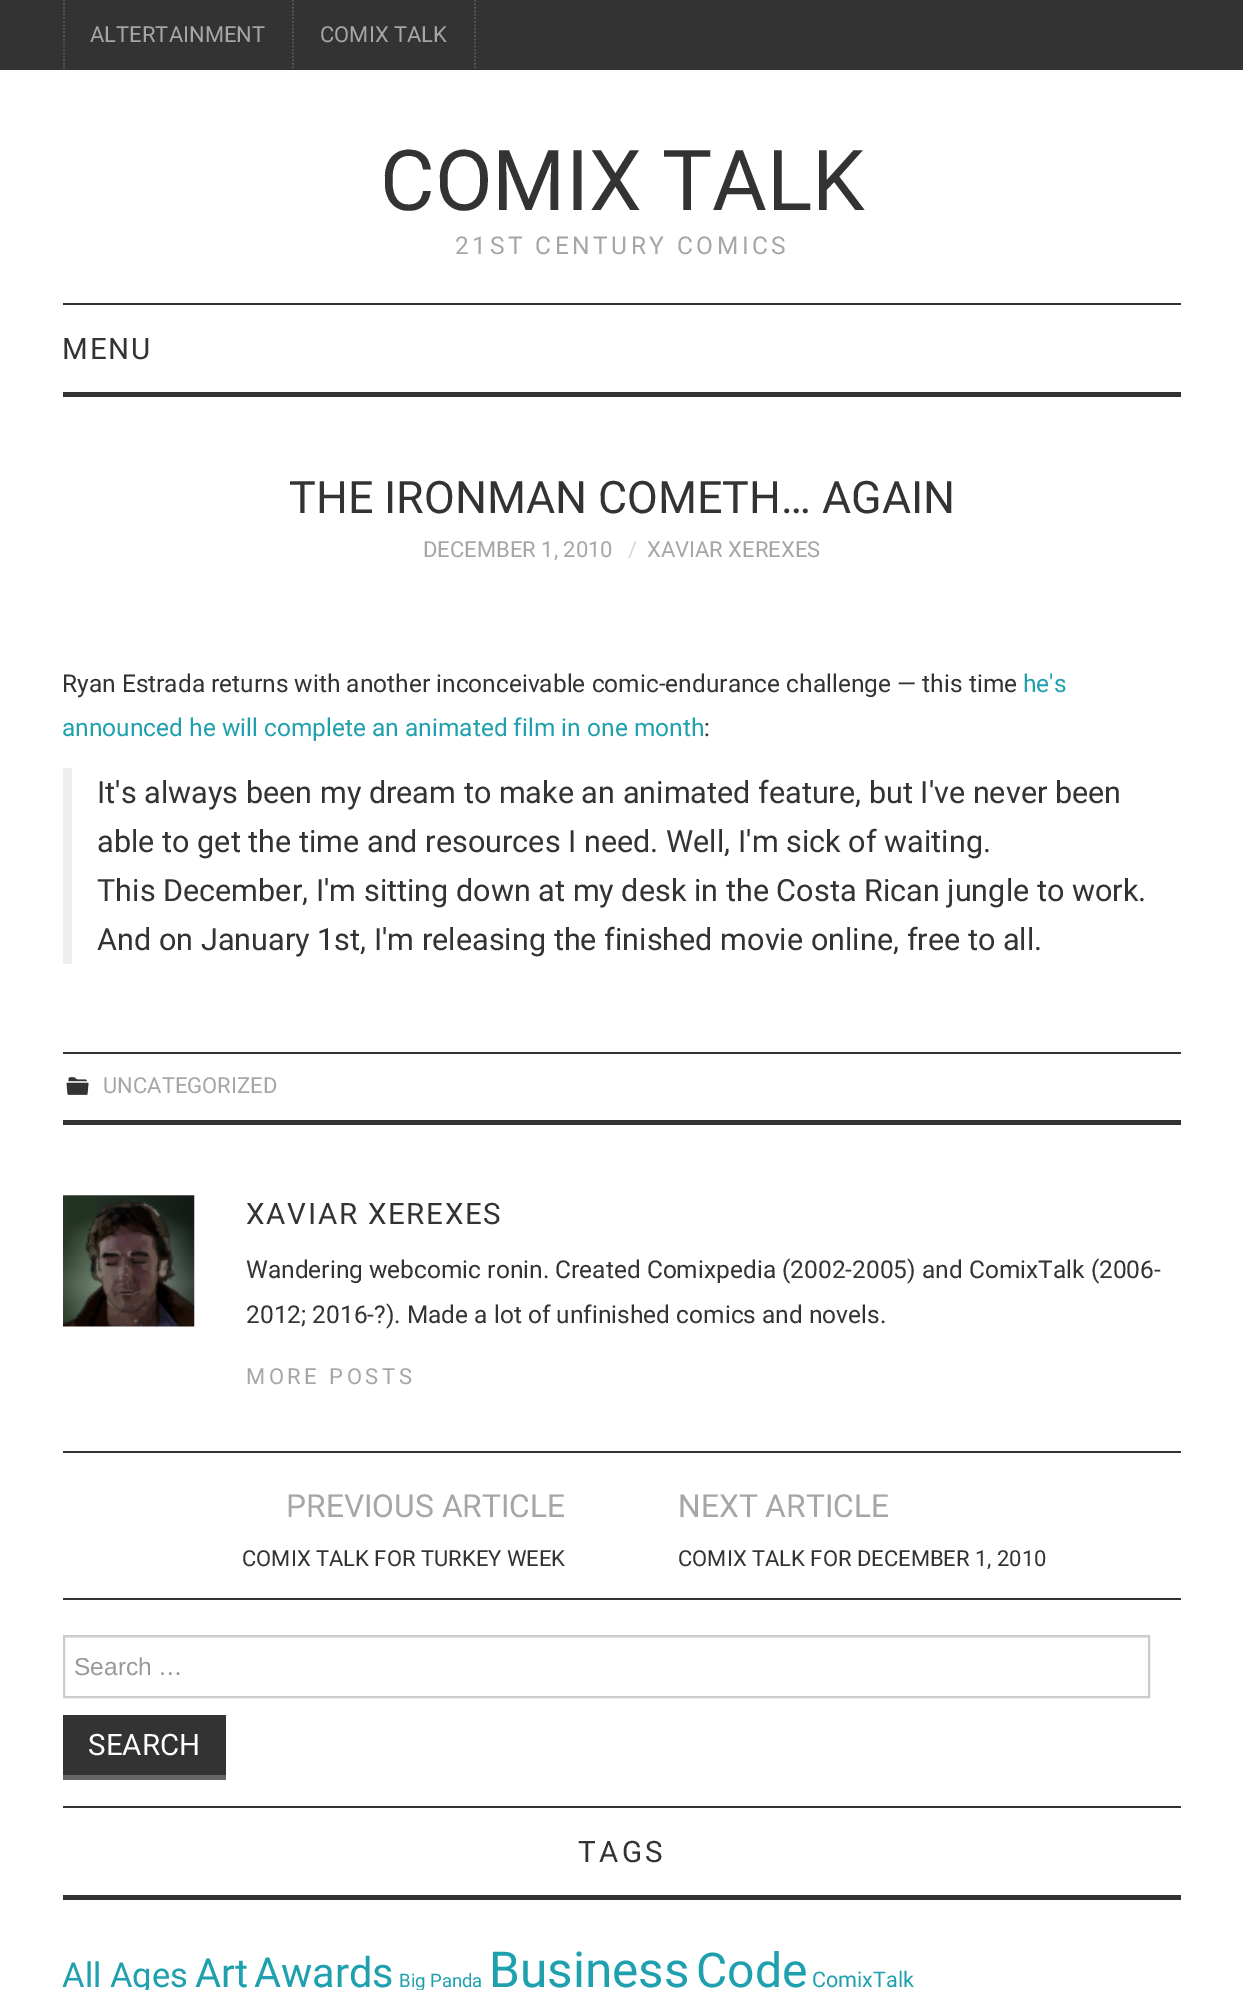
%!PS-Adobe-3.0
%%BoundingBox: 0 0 1243 1990
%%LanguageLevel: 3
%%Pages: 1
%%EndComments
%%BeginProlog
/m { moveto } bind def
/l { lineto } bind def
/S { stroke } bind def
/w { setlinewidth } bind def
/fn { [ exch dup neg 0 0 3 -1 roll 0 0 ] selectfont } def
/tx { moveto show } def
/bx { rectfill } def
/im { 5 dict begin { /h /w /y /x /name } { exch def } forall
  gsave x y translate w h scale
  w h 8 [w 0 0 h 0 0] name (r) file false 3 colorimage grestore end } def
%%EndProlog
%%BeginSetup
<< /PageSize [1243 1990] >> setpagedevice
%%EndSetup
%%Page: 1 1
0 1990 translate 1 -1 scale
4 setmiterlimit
1 setgray
0 0 1243 1990 bx
0.2 setgray
0 0 1243 70 bx
0.337 setgray
1.8 w
[1.75 1.75] 0 setdash
64 0 m 64 70 l S
293 0 m 293 70 l S
/Roboto-Regular 22 fn
0.651 setgray
(ALTERTAINMENT) 90 42 tx
0.337 setgray
475 0 m 475 70 l S
0.651 setgray
(COMIX TALK) 320 42 tx
/Roboto-Regular 84 fn
0.2 setgray
(COMIX TALK) 380 210 tx
/Roboto-Regular 24.5 fn
0.651 setgray
455 254 m 3.5 0 (21ST CENTURY COMICS) ashow
0.2 setgray
63 303 1118 2 bx
63 392 1118 5 bx
/Roboto-Regular 29.5 fn
62 359 m 1.75 0 (MENU) ashow
/Roboto-Regular 44.75 fn
(THE IRONMAN COMETH… AGAIN) 289 513 tx
/Roboto-Regular 22 fn
0.651 setgray
(DECEMBER 1, 2010) 423 557 tx
0.839 setgray
(/) 628 557 tx
0.651 setgray
(XAVIAR XEREXES) 647 557 tx
/Roboto-Regular 24.5 fn
0.2 setgray
(Ryan Estrada returns with another inconceivable comic-endurance challenge — this time) 62 692 tx
0.122 0.627 0.682 setrgbcolor
(he's) 1023 692 tx
(announced he will complete an animated film in one month) 62 736 tx
0.2 setgray
(:) 704 736 tx
0.933 setgray
63 768 9 196 bx
/Roboto-Regular 30.6 fn
0.2 setgray
(It's always been my dream to make an animated feature, but I've never been) 97 803 tx
(able to get the time and resources I need. Well, I'm sick of waiting.) 97 852 tx
(This December, I'm sitting down at my desk in the Costa Rican jungle to work.) 97 901 tx
(And on January 1st, I'm releasing the finished movie online, free to all.) 97 950 tx
63 1052 1118 2 bx
63 1120 1118 5 bx
(image0.raw) 66 1077 23 18 im
/Roboto-Regular 22 fn
0.651 setgray
(UNCATEGORIZED) 103 1093 tx
0.2 setgray
63 1451 1118 2 bx
(image1.raw) 63 1195 132 132 im
/Roboto-Regular 29.5 fn
246 1224 m 1.75 0 (XAVIAR XEREXES) ashow
/Roboto-Regular 24.5 fn
(Wandering webcomic ronin. Created Comixpedia \(2002-2005\) and ComixTalk \(2006-) 246 1278 tx
(2012; 2016-?\). Made a lot of unfinished comics and novels.) 246 1323 tx
/Roboto-Regular 22 fn
0.651 setgray
246 1384 m 3.5 0 (MORE POSTS) ashow
0.2 setgray
63 1598 1118 2 bx
/Roboto-Regular 31.75 fn
0.651 setgray
(PREVIOUS ARTICLE) 286 1517 tx
/Roboto-Regular 22 fn
0.2 setgray
(COMIX TALK FOR TURKEY WEEK) 242 1566 tx
/Roboto-Regular 31.75 fn
0.651 setgray
(NEXT ARTICLE) 678 1517 tx
/Roboto-Regular 22 fn
0.2 setgray
(COMIX TALK FOR DECEMBER 1, 2010) 678 1566 tx
63 1806 1118 2 bx
0.925 setgray
65 1637 1083 1 bx
0.8 setgray
2 w
[] 0 setdash
64 1636 1085 61 rectstroke
/LiberationSans-Regular 24.5 fn
0.6 setgray
(Search …) 74 1675 tx
0.2 setgray
63 1715 163 60 bx
0.4 setgray
63 1775 163 5 bx
/Roboto-Regular 29.5 fn
1 setgray
(SEARCH) 88 1755 tx
0.2 setgray
63 1895 1118 5 bx
578 1862 m 3.5 0 (TAGS) ashow
/Roboto-Regular 34.5 fn
0.122 0.627 0.682 setrgbcolor
(All Ages) 62 1987 tx
/Roboto-Regular 40 fn
(Art) 195 1987 tx
/Roboto-Regular 41.5 fn
(Awards) 254 1987 tx
/Roboto-Regular 18.5 fn
(Big Panda) 399 1987 tx
/Roboto-Regular 49.5 fn
(Business) 489 1987 tx
/Roboto-Regular 48 fn
(Code) 696 1987 tx
/Roboto-Regular 21.5 fn
(ComixTalk) 812 1987 tx
showpage
%%EOF
